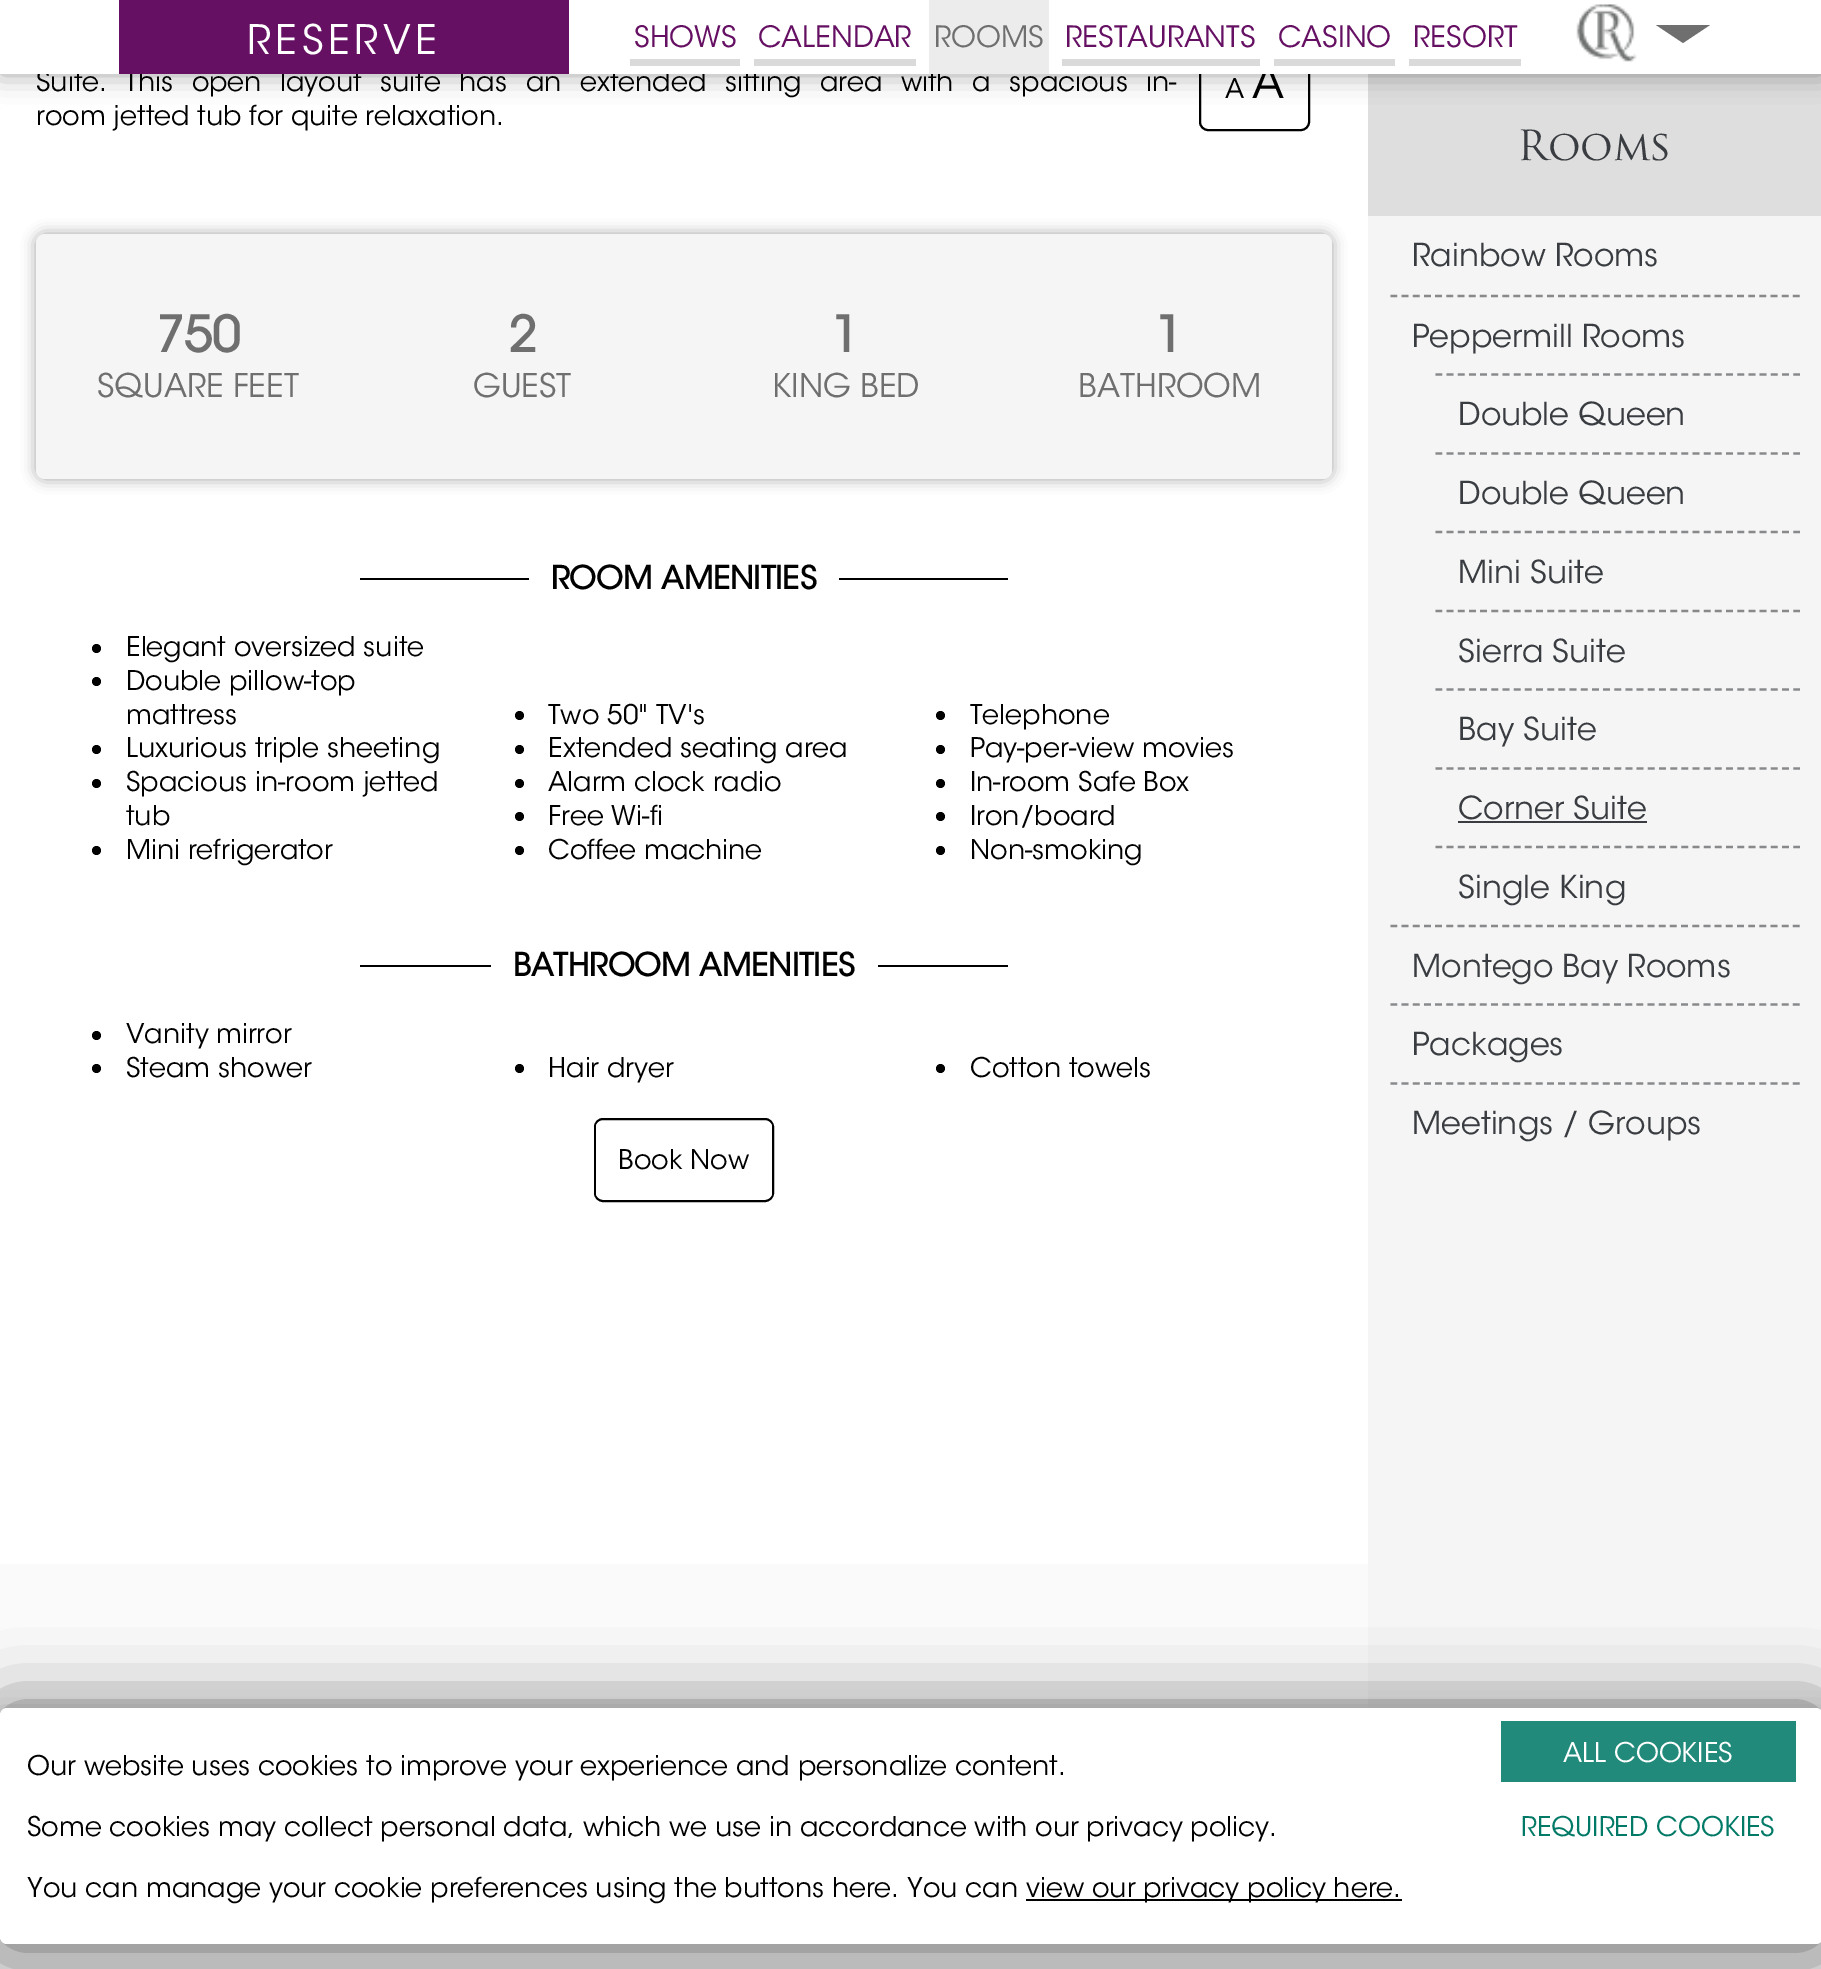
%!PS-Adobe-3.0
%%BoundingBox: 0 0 1821 1969
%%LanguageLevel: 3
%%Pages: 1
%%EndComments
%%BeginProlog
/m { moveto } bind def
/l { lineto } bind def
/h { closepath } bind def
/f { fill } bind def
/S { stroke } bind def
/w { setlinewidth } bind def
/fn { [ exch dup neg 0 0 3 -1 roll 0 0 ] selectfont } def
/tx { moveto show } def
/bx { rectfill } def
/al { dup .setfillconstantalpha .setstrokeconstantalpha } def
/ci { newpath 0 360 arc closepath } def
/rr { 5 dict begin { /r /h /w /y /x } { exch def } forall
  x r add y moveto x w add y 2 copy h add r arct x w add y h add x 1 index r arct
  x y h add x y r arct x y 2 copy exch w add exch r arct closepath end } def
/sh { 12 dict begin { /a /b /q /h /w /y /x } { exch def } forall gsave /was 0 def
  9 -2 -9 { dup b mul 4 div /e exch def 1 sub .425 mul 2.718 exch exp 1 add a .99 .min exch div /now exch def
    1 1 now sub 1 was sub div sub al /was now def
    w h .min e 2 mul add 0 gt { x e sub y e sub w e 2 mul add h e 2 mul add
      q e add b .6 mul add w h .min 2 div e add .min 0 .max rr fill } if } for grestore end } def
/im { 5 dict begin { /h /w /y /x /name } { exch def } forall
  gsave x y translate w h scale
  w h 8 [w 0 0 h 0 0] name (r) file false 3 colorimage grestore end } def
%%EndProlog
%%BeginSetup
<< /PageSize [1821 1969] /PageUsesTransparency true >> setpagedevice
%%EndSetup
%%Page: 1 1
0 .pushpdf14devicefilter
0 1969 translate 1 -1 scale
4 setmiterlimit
0.98 setgray
0 0 1821 1969 bx
1 setgray
0 74 1368 1490 bx
0 setgray
2 w
1200 44 109 86 8 rr S
1 setgray
1202 45 105 83 6 rr f
0.871 setgray
1368 74 453 142 bx
0 setgray
0 0 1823 74 0 13.5 0.35 sh
/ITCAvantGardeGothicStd-Light 27 fn
36 91 m 10.75 0 32 (Suite. This open layout suite has an extended sitting area with a spacious in-) widthshow
/ITCAvantGardeGothicStd-Light 45 fn
(A) 1252 98 tx
1 setgray
0 0 1821 74 bx
0.396 0.063 0.388 setrgbcolor
119 0 450 74 bx
/ITCAvantGardeGothicStd-Light 40.5 fn
1 setgray
247 54 m 4.5 0 (RESERVE) ashow
/ITCAvantGardeGothicStd-Light 29.25 fn
0.396 0.063 0.388 setrgbcolor
(SHOWS) 634 47 tx
0.855 setgray
630 59 110 7 bx
0.396 0.063 0.388 setrgbcolor
(CALENDAR) 758 47 tx
0.855 setgray
754 59 162 7 bx
0.925 setgray
929 0 120 74 bx
0.435 setgray
(ROOMS) 934 47 tx
0.396 0.063 0.388 setrgbcolor
(RESTAURANTS) 1065 47 tx
0.855 setgray
1062 59 198 7 bx
0.396 0.063 0.388 setrgbcolor
(CASINO) 1278 47 tx
0.855 setgray
1274 59 121 7 bx
0.396 0.063 0.388 setrgbcolor
(RESORT) 1413 47 tx
0.855 setgray
1409 59 112 7 bx
(image0.raw) 1576 4 61 58 im
0.435 setgray
1656 25 m 1710 25 l 1683 43 l h f
/ITCAvantGardeGothicStd-Light 27 fn
0 setgray
(room jetted tub for quite relaxation.) 36 125 tx
(A) 1225 98 tx
36 234 1296 245 9 7 0.35 sh
0.961 setgray
36 234 1296 245 9 rr f
/ITCAvantGardeGothicStd-Bold 49 fn
0.435 setgray
(750) 156 352 tx
/ITCAvantGardeGothicStd-Light 32.5 fn
(SQUARE FEET) 97 397 tx
/ITCAvantGardeGothicStd-Bold 49 fn
(2) 508 352 tx
/ITCAvantGardeGothicStd-Light 32.5 fn
(GUEST) 473 397 tx
/ITCAvantGardeGothicStd-Bold 49 fn
(1) 831 352 tx
/ITCAvantGardeGothicStd-Light 32.5 fn
(KING BED) 772 397 tx
/ITCAvantGardeGothicStd-Bold 49 fn
(1) 1155 352 tx
/ITCAvantGardeGothicStd-Light 32.5 fn
(BATHROOM) 1078 397 tx
0 setgray
360 578 648 2 bx
1 setgray
529 578 310 2 bx
/ITCAvantGardeGothicStd-Bold 31.5 fn
0 setgray
(ROOM AMENITIES) 551 589 tx
96.5 648.5 4.5 ci f
/ITCAvantGardeGothicStd-Light 27 fn
(Elegant oversized suite) 126 656 tx
96.5 681.5 4.5 ci f
(Double pillow-top) 126 690 tx
(mattress) 126 724 tx
96.5 749.5 4.5 ci f
(Luxurious triple sheeting) 126 757 tx
96.5 783.5 4.5 ci f
(Spacious in-room jetted) 126 791 tx
(tub) 126 825 tx
96.5 850.5 4.5 ci f
(Mini refrigerator) 126 859 tx
519.5 715.5 4.5 ci f
(Two 50" TV's) 548 724 tx
519.5 749.5 4.5 ci f
(Extended seating area) 548 757 tx
519.5 783.5 4.5 ci f
(Alarm clock radio) 548 791 tx
519.5 816.5 4.5 ci f
(Free Wi-fi) 548 825 tx
519.5 850.5 4.5 ci f
(Coffee machine) 548 859 tx
940.5 715.5 4.5 ci f
(Telephone) 970 724 tx
940.5 749.5 4.5 ci f
(Pay-per-view movies) 970 757 tx
940.5 783.5 4.5 ci f
(In-room Safe Box) 970 791 tx
940.5 816.5 4.5 ci f
(Iron/board) 970 825 tx
940.5 850.5 4.5 ci f
(Non-smoking) 970 859 tx
360 965 648 2 bx
1 setgray
491 965 387 2 bx
/ITCAvantGardeGothicStd-Bold 31.5 fn
0 setgray
(BATHROOM AMENITIES) 513 976 tx
96.5 1035.5 4.5 ci f
/ITCAvantGardeGothicStd-Light 27 fn
(Vanity mirror) 126 1043 tx
96.5 1068.5 4.5 ci f
(Steam shower) 126 1077 tx
519.5 1068.5 4.5 ci f
(Hair dryer) 548 1077 tx
940.5 1068.5 4.5 ci f
(Cotton towels) 970 1077 tx
595 1119 178 82 8 rr S
1 setgray
596 1121 176 78 6 rr f
0 setgray
(Book Now) 618 1169 tx
0.961 setgray
1368 216 453 1494 bx
/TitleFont-Regular 40.5 fn
0.224 0.235 0.251 setrgbcolor
(Rooms) 1517 160 tx
/ITCAvantGardeGothicStd-Light 31.5 fn
(Rainbow Rooms) 1412 266 tx
0.533 0.537 0.545 setrgbcolor
2.2 w
[6.75 4.43] 0 setdash
1390.5 296 m 1800 296 l S
0.224 0.235 0.251 setrgbcolor
(Peppermill Rooms) 1412 347 tx
0.533 0.537 0.545 setrgbcolor
1435.5 374.5 m 1800 374.5 l S
0.224 0.235 0.251 setrgbcolor
(Double Queen) 1458 425 tx
0.533 0.537 0.545 setrgbcolor
1435.5 453.5 m 1800 453.5 l S
0.224 0.235 0.251 setrgbcolor
(Double Queen) 1458 504 tx
0.533 0.537 0.545 setrgbcolor
1435.5 532 m 1800 532 l S
0.224 0.235 0.251 setrgbcolor
(Mini Suite) 1458 583 tx
0.533 0.537 0.545 setrgbcolor
1435.5 611 m 1800 611 l S
0.224 0.235 0.251 setrgbcolor
(Sierra Suite) 1458 662 tx
0.533 0.537 0.545 setrgbcolor
1435.5 689.5 m 1800 689.5 l S
0.224 0.235 0.251 setrgbcolor
(Bay Suite) 1458 740 tx
0.533 0.537 0.545 setrgbcolor
1435.5 768.5 m 1800 768.5 l S
0.224 0.235 0.251 setrgbcolor
(Corner Suite) 1458 819 tx
1458 821 189 2 bx
0.533 0.537 0.545 setrgbcolor
1435.5 847 m 1800 847 l S
0.224 0.235 0.251 setrgbcolor
(Single King) 1458 898 tx
0.533 0.537 0.545 setrgbcolor
1390.5 926 m 1800 926 l S
0.224 0.235 0.251 setrgbcolor
(Montego Bay Rooms) 1412 977 tx
0.533 0.537 0.545 setrgbcolor
1390.5 1004.5 m 1800 1004.5 l S
0.224 0.235 0.251 setrgbcolor
(Packages) 1412 1055 tx
0.533 0.537 0.545 setrgbcolor
1390.5 1083.5 m 1800 1083.5 l S
0.224 0.235 0.251 setrgbcolor
(Meetings / Groups) 1412 1134 tx
0 setgray
0 1721 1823 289 0 13.5 0.35 sh
0.878 setgray
0 1937 1821 32 bx
0 setgray
0 1708 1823 236 7 36 0.54 sh
1 setgray
0 1708 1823 236 7 rr f
/ITCAvantGardeGothicStd-Light 27 fn
0 setgray
(Our website uses cookies to improve your experience and personalize content.) 27 1775 tx
(Some cookies may collect personal data, which we use in accordance with our privacy policy.) 27 1836 tx
(You can manage your cookie preferences using the buttons here. You can) 27 1897 tx
1026 1899 376 2 bx
(view our privacy policy here.) 1026 1897 tx
0.129 0.541 0.478 setrgbcolor
1501 1721 295 61 bx
1 setgray
(ALL COOKIES) 1563 1762 tx
0 0.475 0.4 setrgbcolor
(REQUIRED COOKIES) 1521 1836 tx
.poppdf14devicefilter showpage
%%EOF
